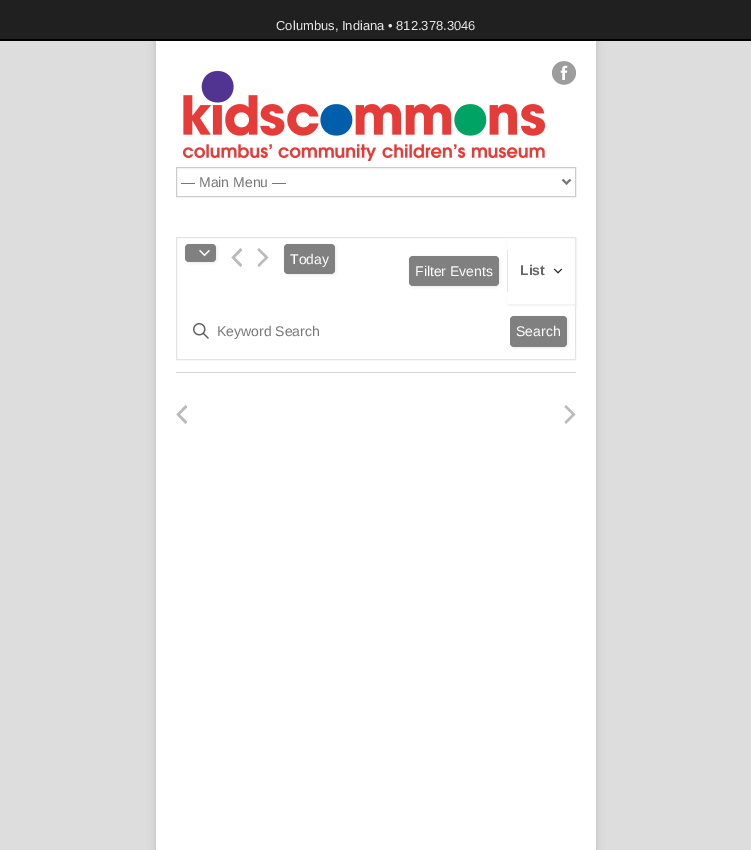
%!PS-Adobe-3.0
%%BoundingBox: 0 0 751 850
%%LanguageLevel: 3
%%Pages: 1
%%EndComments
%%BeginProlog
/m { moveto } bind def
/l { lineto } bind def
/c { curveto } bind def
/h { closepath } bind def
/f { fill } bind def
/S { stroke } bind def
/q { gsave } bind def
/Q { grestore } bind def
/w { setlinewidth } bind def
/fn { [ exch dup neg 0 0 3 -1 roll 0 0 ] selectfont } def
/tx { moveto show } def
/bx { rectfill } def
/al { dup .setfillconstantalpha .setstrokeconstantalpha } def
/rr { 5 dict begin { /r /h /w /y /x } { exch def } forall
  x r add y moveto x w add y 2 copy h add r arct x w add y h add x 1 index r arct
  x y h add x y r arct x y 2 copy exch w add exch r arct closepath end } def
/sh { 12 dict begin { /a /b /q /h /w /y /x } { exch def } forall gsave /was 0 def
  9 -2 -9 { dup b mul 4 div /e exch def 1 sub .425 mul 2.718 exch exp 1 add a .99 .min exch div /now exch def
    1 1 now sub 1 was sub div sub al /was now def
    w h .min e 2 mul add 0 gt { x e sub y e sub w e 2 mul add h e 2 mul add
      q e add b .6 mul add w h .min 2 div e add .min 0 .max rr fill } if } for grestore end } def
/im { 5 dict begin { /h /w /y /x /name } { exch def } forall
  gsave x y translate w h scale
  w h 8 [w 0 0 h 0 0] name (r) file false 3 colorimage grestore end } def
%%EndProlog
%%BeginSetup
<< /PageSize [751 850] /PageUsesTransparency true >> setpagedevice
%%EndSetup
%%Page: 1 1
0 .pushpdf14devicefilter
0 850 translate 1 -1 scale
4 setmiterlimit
0.867 setgray
0 0 751 850 bx
0.733 setgray
156 41 440 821 0 4 1 sh
0.125 setgray
0 0 751 39 bx
/LiberationSans-Regular 13 fn
0.906 setgray
(Columbus, Indiana • 812.378.3046) 276 30 tx
0 setgray
0 39 751 2 bx
1 setgray
156 41 440 809 bx
(image0.raw) 183 71 362 90 im
(image1.raw) 552 61 24 24 im
0.8 setgray
176.5 167.5 399 29 rectstroke
0.467 setgray
2 w
562.5 179.5 m 566.5 183.5 l 570.5 179.5 l S
/LiberationSans-Regular 14 fn
(— Main Menu —) 181 187 tx
0.894 setgray
1 w
176.5 237.5 399 122 rectstroke
0.925 setgray
186 245 31 18 4 1.5 1 sh
0.502 setgray
185 244 31 18 4 rr f
(image2.raw) 199 250 11 7 im
q
231 248 11 19 rectclip
0.729 setgray
242.5 265 m 240.5 267 l 231.5 257.5 l 240.5 248 l 242.5 250 l 235 257.5 l h f
Q
0.729 setgray
257.5 250 m 259 248 l 268.5 257.5 l 259 267 l 257.5 265 l 265 257.5 l h f
0.925 setgray
285 245 51 30 4 1.5 1 sh
0.502 setgray
284 244 51 30 4 rr f
1 setgray
(Today) 290 264 tx
0.894 setgray
507 250 1 42 bx
q
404 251 m 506 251 l 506 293 l 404 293 l h 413 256 m 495 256 l 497 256 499 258 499 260 c 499 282 l 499 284 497 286 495 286 c 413 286 l 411 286 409 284 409 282 c 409 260 l 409 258 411 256 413 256 c h eoclip newpath
0.925 setgray
410 257 90 30 4 1.5 1 sh
Q
0.502 setgray
409 256 90 30 4 rr f
1 setgray
(Filter Events) 415 276 tx
q
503 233 m 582 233 l 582 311 l 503 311 l h 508 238 m 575 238 l 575 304 l 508 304 l h eoclip newpath
0.925 setgray
509 239 67 66 0 1.5 1 sh
Q
/LiberationSans-Bold 14 fn
0.4 setgray
(List) 520 275 tx
(image3.raw) 553 268 10 6 im
(image4.raw) 193 323 16 16 im
0.925 setgray
511 317 57 31 4 1.5 1 sh
1 setgray
509 321 1 23 bx
/LiberationSans-Regular 14 fn
0.467 setgray
(Keyword Search) 217 336 tx
0.502 setgray
510 316 57 31 4 rr f
1 setgray
(Search) 516 336 tx
0.835 setgray
176 372 400 1 bx
q
176 405 11 19 rectclip
0.729 setgray
187.5 422 m 185.5 424 l 176.5 414.5 l 185.5 405 l 187.5 407 l 180 414.5 l h f
Q
0.729 setgray
564.5 407 m 566 405 l 575.5 414.5 l 566 424 l 564.5 422 l 572 414.5 l h f
.poppdf14devicefilter showpage
%%EOF
